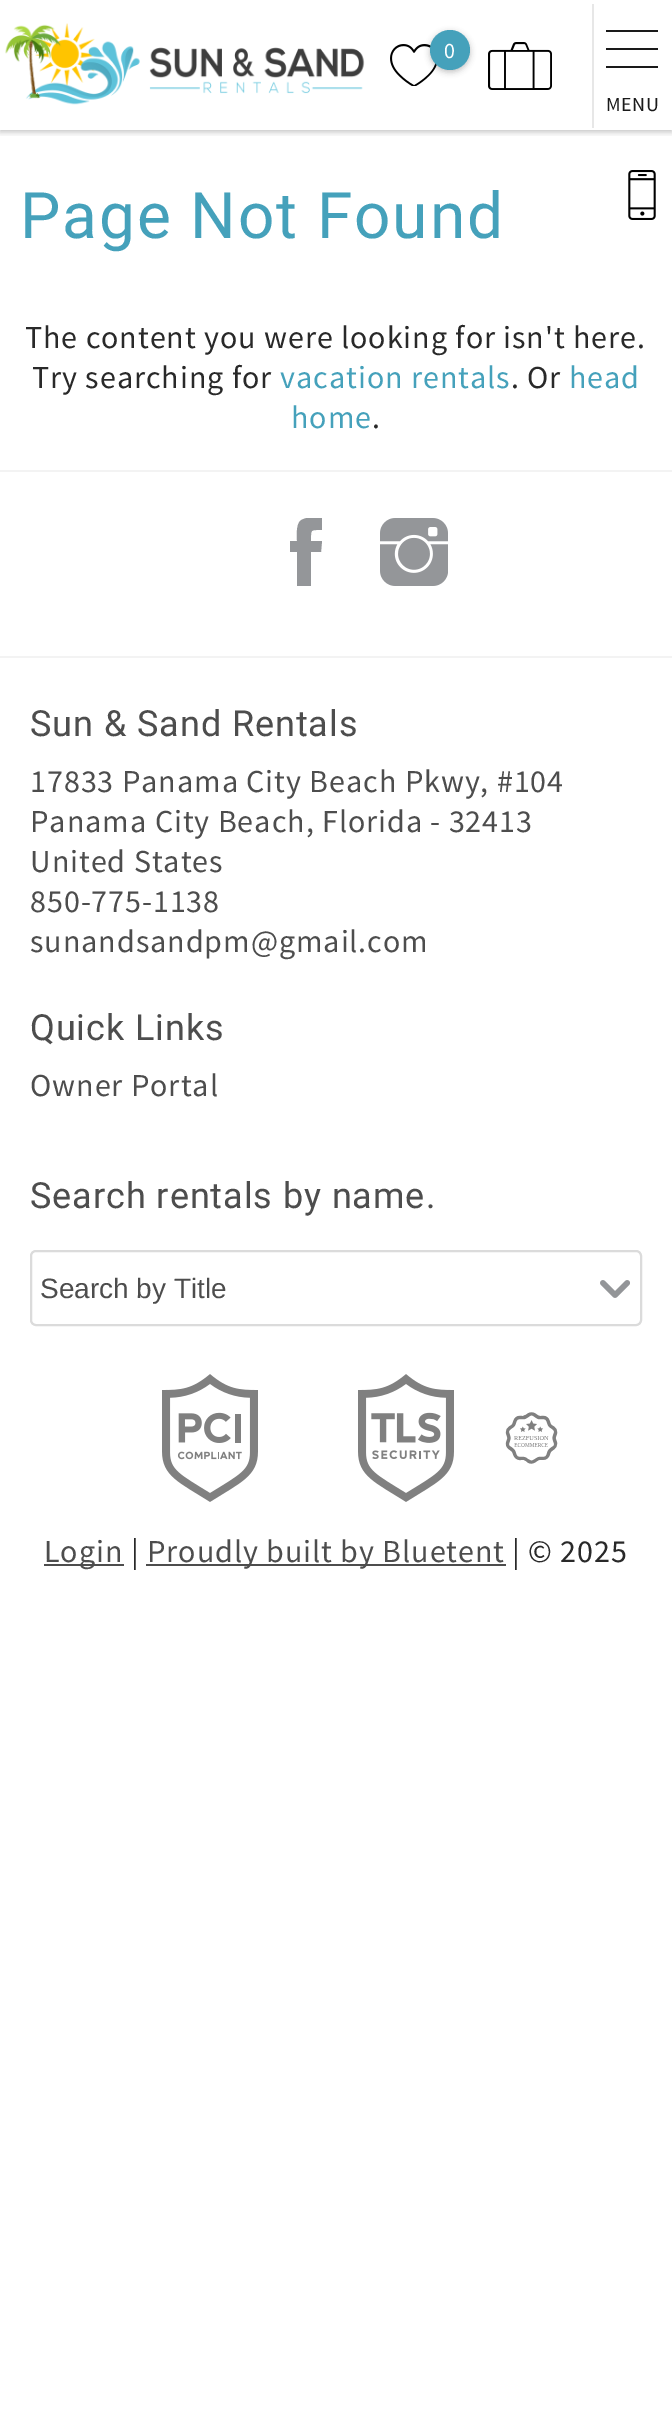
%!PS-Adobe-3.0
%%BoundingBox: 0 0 672 2409
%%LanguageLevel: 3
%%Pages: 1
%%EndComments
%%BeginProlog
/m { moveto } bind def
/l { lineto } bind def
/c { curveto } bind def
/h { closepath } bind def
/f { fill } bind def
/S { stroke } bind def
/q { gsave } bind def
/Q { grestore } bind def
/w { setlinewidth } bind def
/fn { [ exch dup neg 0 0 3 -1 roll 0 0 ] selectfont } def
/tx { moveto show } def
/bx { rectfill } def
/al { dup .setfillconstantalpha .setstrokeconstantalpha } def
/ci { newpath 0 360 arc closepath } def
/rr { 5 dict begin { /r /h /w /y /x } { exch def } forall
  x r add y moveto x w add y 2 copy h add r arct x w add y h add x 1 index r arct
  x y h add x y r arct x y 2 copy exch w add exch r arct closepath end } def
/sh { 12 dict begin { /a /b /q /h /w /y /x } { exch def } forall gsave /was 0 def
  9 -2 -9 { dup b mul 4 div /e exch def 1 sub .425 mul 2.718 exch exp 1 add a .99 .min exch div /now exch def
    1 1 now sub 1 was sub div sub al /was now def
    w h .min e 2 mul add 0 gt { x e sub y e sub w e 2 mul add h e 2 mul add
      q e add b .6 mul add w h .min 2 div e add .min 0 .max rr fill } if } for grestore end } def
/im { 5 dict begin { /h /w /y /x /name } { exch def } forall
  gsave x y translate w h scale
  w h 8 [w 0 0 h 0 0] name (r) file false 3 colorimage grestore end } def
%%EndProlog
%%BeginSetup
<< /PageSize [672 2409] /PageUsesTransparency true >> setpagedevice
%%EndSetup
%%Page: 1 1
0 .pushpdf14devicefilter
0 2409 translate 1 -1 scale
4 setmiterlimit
1 setgray
0 0 672 2409 bx
q
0 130 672 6 rectclip
0.067 setgray
0 2 672 130 0 3 0.25 sh
Q
(image0.raw) 5 23 360 82 im
(image1.raw) 390 44 47 42 im
0.067 setgray
430 32 40 40 20 3 0.25 sh
0.271 0.631 0.733 setrgbcolor
450 50 20 ci f
/SourceSansPro-Regular 22 fn
1 setgray
444 58 m 0.95 0 (0) ashow
(image2.raw) 488 42 64 48 im
(image3.raw) 628 170 28 50 im
0.906 setgray
592 4 2 124 bx
0.102 setgray
606 48 52 2 bx
606 30 52 2 bx
606 66 52 2 bx
/SourceSansPro-Regular 20 fn
606 111 m 0.5 0 (MENU) ashow
/Roboto-Regular 64 fn
0.271 0.631 0.733 setrgbcolor
20 238 m 1.9 0 (Page Not Found) ashow
/SourceSansPro-Regular 32 fn
0.161 setgray
25 348 m 0.95 0 (The content you were looking for isn't here.) ashow
32 388 m 0.95 0 (Try searching for) ashow
0.271 0.631 0.733 setrgbcolor
280 388 m 0.95 0 (vacation rentals) ashow
0.161 setgray
511 388 m 0.95 0 (. Or) ashow
0.271 0.631 0.733 setrgbcolor
569 388 m 0.95 0 (head) ashow
291 428 m 0.95 0 (home) ashow
0.161 setgray
372 428 m 0.95 0 (.) ashow
0.953 setgray
0 470 672 2 bx
0 656 672 2 bx
q
290 518 32 68 rectclip
0.58 0.588 0.6 setrgbcolor
300 521 m 306 516 315 518 322 518 c 322 530 l 310 530 311 529 311 541 c 322 541 l 321 552 l 311 552 l 311 586 l 297 586 l 297 552 l 290 552 l 290 541 l 297 541 l 297 534 296 526 300 521 c h f
Q
(image4.raw) 380 518 68 68 im
/Roboto-Regular 36 fn
0.302 setgray
30 736 m 0.95 0 (Sun & Sand Rentals) ashow
/SourceSansPro-Regular 32 fn
30 792 m 0.95 0 (17833 Panama City Beach Pkwy, #104) ashow
30 832 m 0.95 0 (Panama City Beach, Florida - 32413) ashow
30 872 m 0.95 0 (United States) ashow
30 912 m 0.95 0 (850-775-1138) ashow
30 952 m 0.95 0 (sunandsandpm@gmail.com) ashow
/Roboto-Regular 36 fn
30 1040 m 0.95 0 (Quick Links) ashow
/SourceSansPro-Regular 32 fn
30 1096 m 0.95 0 (Owner Portal) ashow
/Roboto-Regular 36 fn
30 1208 m 0.95 0 (Search rentals by name.) ashow
(image5.raw) 600 1280 30 18 im
0.859 setgray
2 w
31 1251 610 74 5 rr S
/LiberationSans-Regular 28 fn
0.302 setgray
(Search by Title) 40 1298 tx
(image6.raw) 162 1374 96 128 im
(image7.raw) 358 1374 96 128 im
(image8.raw) 505 1412 53 52 im
44 1564 80 2 bx
/SourceSansPro-Regular 32 fn
44 1562 m 0.95 0 (Login) ashow
0.161 setgray
131 1562 m 0.95 0 (|) ashow
0.302 setgray
146 1564 360 2 bx
147 1562 m 0.95 0 (Proudly built by Bluetent) ashow
0.161 setgray
512 1562 m 0.95 0 (| © 2025) ashow
.poppdf14devicefilter showpage
%%EOF
